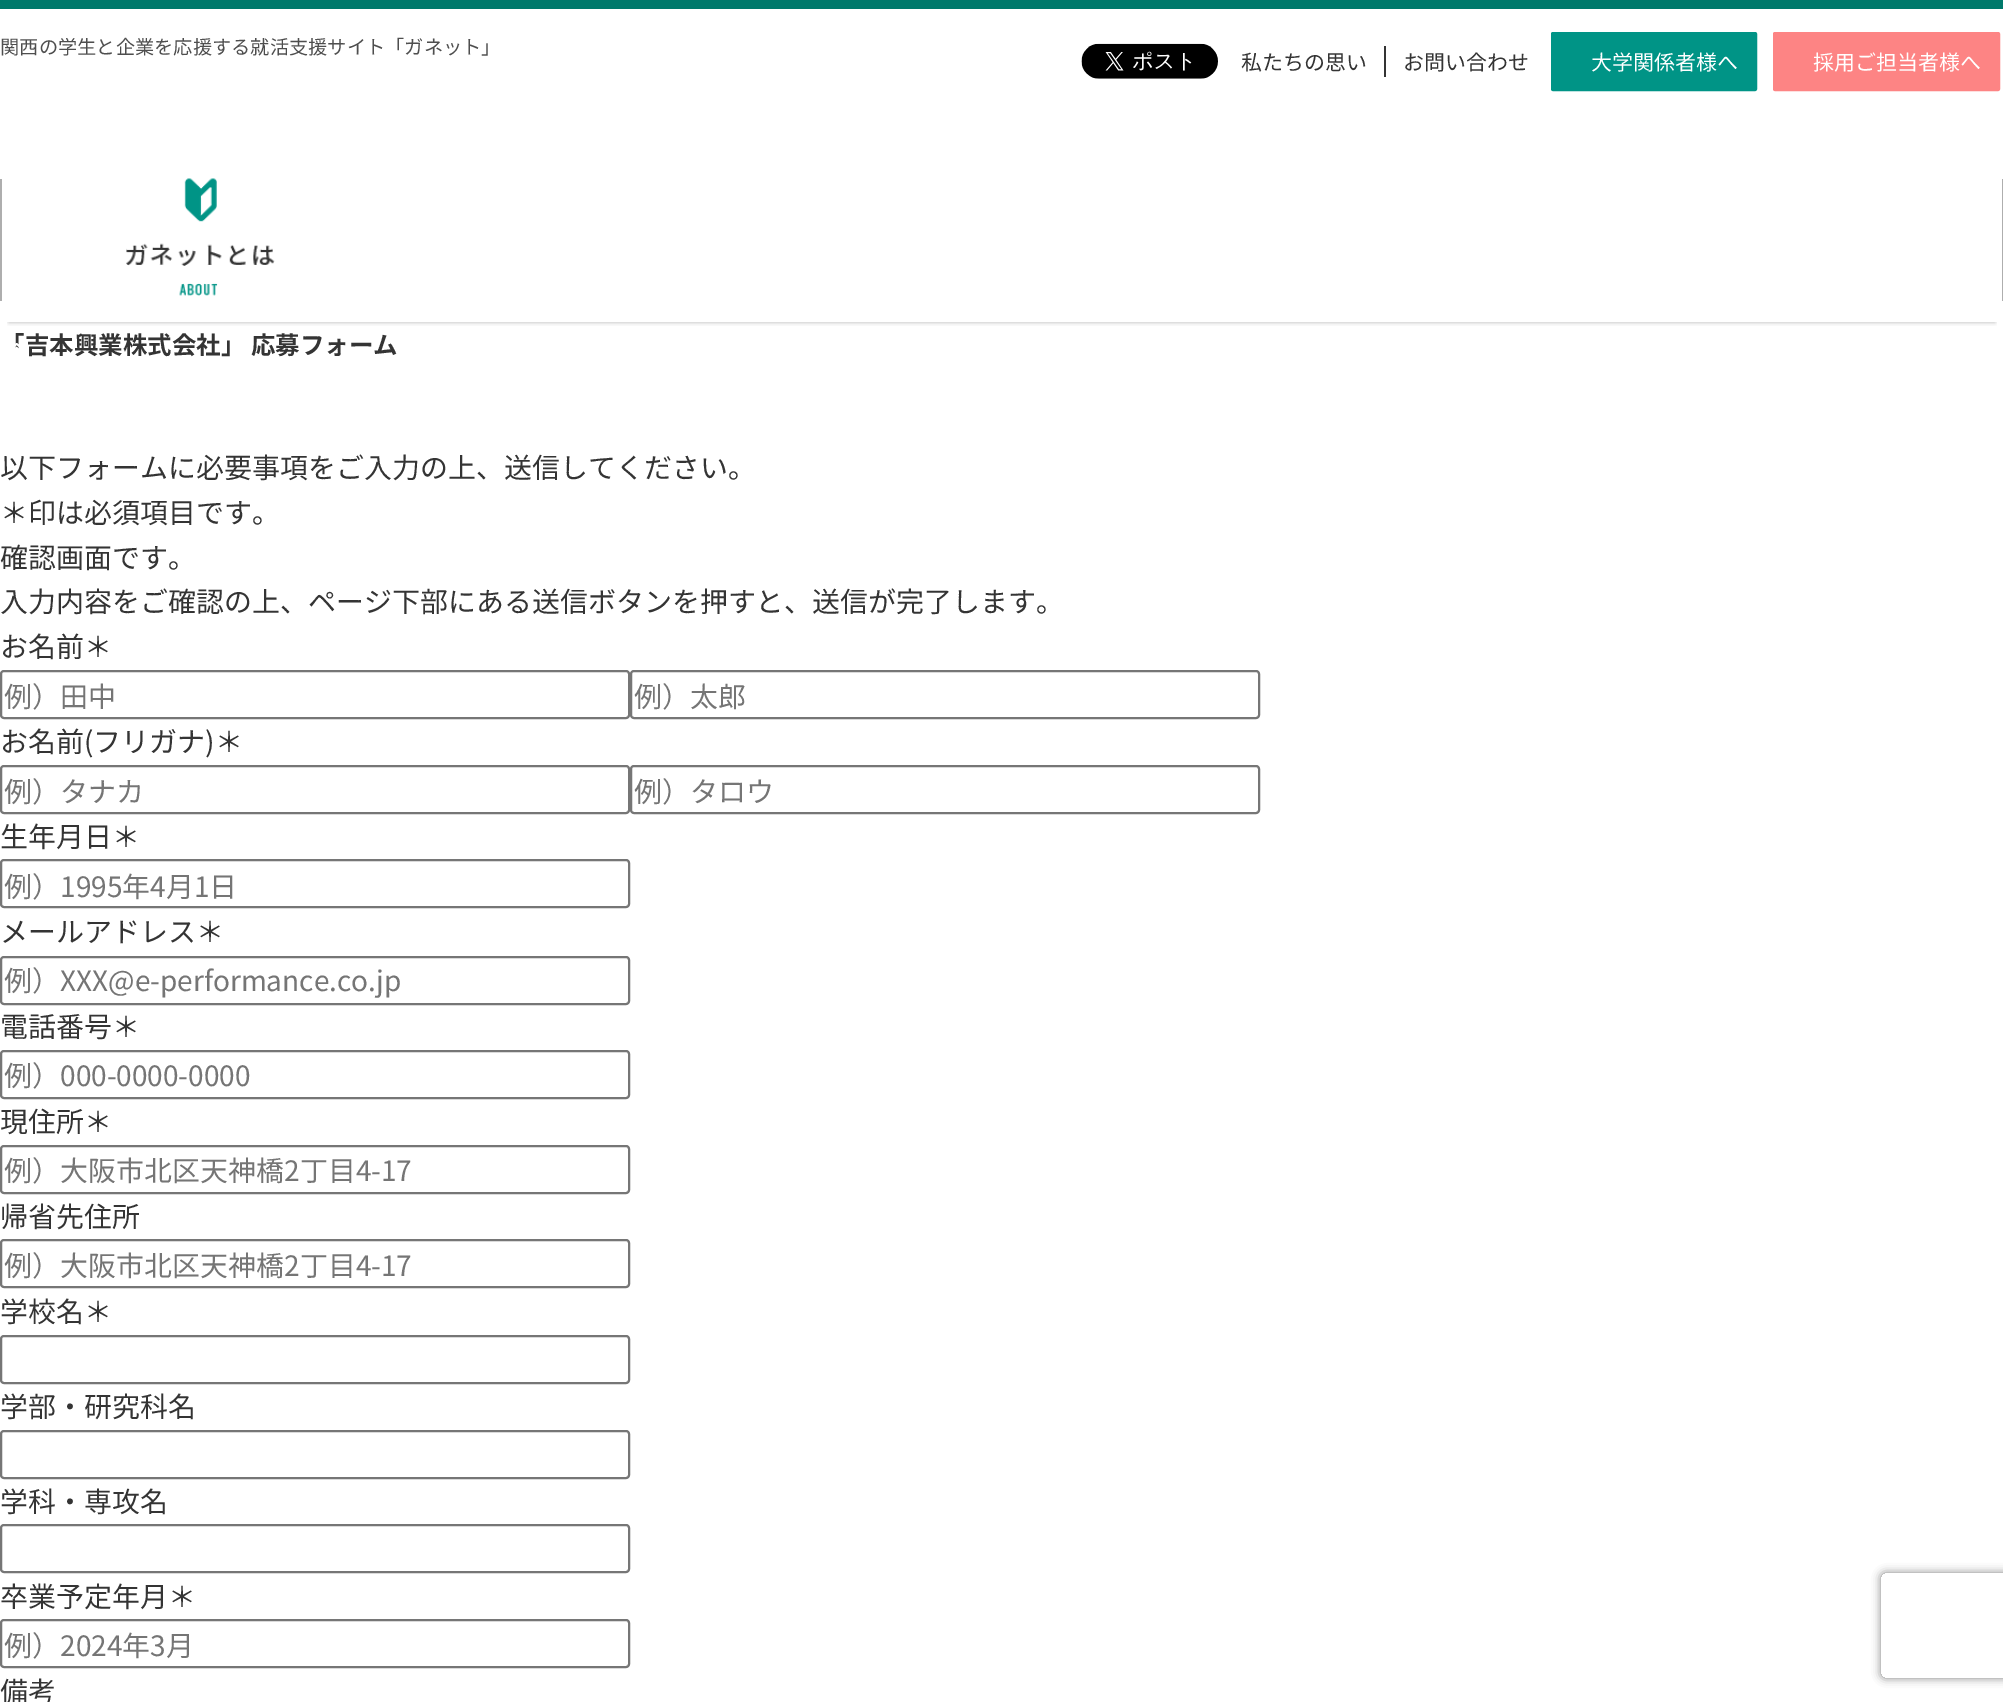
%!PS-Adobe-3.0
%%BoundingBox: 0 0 2003 1702
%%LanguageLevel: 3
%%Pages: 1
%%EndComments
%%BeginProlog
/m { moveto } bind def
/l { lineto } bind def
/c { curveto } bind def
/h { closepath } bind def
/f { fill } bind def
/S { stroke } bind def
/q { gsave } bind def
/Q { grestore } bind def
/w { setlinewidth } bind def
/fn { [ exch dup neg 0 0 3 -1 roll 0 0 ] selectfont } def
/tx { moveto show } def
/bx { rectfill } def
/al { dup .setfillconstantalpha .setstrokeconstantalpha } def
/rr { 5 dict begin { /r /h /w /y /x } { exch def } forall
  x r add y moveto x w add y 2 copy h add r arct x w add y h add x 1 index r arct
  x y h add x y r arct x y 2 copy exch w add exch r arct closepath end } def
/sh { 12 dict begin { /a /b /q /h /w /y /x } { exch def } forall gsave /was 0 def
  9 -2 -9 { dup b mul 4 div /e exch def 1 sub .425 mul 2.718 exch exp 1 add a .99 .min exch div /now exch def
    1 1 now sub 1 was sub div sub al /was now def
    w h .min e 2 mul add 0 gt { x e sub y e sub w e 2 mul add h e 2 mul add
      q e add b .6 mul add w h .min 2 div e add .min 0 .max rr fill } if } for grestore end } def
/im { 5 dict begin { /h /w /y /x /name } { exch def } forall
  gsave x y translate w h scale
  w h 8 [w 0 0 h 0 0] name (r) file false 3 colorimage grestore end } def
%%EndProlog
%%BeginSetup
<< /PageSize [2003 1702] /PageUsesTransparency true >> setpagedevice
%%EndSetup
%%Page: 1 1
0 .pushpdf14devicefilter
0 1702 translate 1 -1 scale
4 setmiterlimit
1 setgray
0 0 2003 1702 bx
q
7 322 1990 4 rectclip
0 setgray
9 18 1986 304 0 2.5 0.3 sh
Q
0 0.475 0.42 setrgbcolor
0 0 2003 9 bx
/NotoSansJP-Regular 19.25 fn
0.306 setgray
(関西の学生と企業を応援する就活支援サイト「ガネット」) 0 54 tx
(image0.raw) 1081 43 137 36 im
/NotoSansJP-Regular 21 fn
0.204 setgray
(私たちの思い) 1241 70 tx
(お問い合わせ) 1403 70 tx
1384 46 2 31 bx
0 0.58 0.525 setrgbcolor
1552 33 204 57 1 rr q f Q
2 w
S
1 setgray
(大学関係者様へ) 1591 70 tx
0.992 0.518 0.518 setrgbcolor
1774 33 225 57 1 rr q f Q
S
1 setgray
(採用ご担当者様へ) 1813 70 tx
(image1.raw) 126 178 149 118 im
0.682 setgray
0 179 2 122 bx
2002 179 1 122 bx
/NotoSansJP-Bold 24.5 fn
0.204 setgray
(「吉本興業株式会社」 応募フォーム) 0 354 tx
(image2.raw) 15 343 4 6 im
/NotoSansJP-Regular 28 fn
(以下フォームに必要事項をご入力の上、送信してください。) 0 478 tx
(＊印は必須項目です。) 0 523 tx
(確認画面です。) 0 568 tx
(入力内容をご確認の上、ページ下部にある送信ボタンを押すと、送信が完了します。) 0 612 tx
(お名前＊) 0 657 tx
0.463 setgray
1 671 628 47 3 rr S
0.459 setgray
(例）田中) 4 707 tx
0.463 setgray
631 671 628 47 3 rr S
0.459 setgray
(例）太郎) 634 707 tx
0.204 setgray
(お名前\(フリガナ\)＊) 0 752 tx
0.463 setgray
1 766 628 47 3 rr S
0.459 setgray
(例）タナカ) 4 802 tx
0.463 setgray
631 766 628 47 3 rr S
0.459 setgray
(例）タロウ) 634 802 tx
0.204 setgray
(生年月日＊) 0 847 tx
0.463 setgray
1 860 628 47 3 rr S
0.459 setgray
(例）1995年4月1日) 4 897 tx
0.204 setgray
(メールアドレス＊) 0 942 tx
0.463 setgray
1 957 628 47 3 rr S
0.459 setgray
(例）XXX@e-performance.co.jp) 4 991 tx
0.204 setgray
(電話番号＊) 0 1037 tx
0.463 setgray
1 1051 628 47 3 rr S
0.459 setgray
(例）000-0000-0000) 4 1086 tx
0.204 setgray
(現住所＊) 0 1132 tx
0.463 setgray
1 1146 628 47 3 rr S
0.459 setgray
(例）大阪市北区天神橋2丁目4-17) 4 1181 tx
0.204 setgray
(帰省先住所) 0 1227 tx
0.463 setgray
1 1240 628 47 3 rr S
0.459 setgray
(例）大阪市北区天神橋2丁目4-17) 4 1276 tx
0.204 setgray
(学校名＊) 0 1322 tx
0.463 setgray
1 1336 628 47 3 rr S
0.204 setgray
(学部・研究科名) 0 1417 tx
0.463 setgray
1 1431 628 47 3 rr S
0.204 setgray
(学科・専攻名) 0 1512 tx
0.463 setgray
1 1525 628 47 3 rr S
0.204 setgray
(卒業予定年月＊) 0 1607 tx
0.463 setgray
1 1620 628 47 3 rr S
0.459 setgray
(例）2024年3月) 4 1656 tx
0.204 setgray
(備考) 0 1702 tx
q
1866 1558 m 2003 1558 l 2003 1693 l 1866 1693 l h 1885 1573 m 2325 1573 l 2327 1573 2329 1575 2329 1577 c 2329 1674 l 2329 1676 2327 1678 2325 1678 c 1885 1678 l 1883 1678 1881 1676 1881 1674 c 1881 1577 l 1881 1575 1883 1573 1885 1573 c h eoclip newpath
0.502 setgray
1881 1573 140 105 4 4.5 1 sh
Q
.poppdf14devicefilter showpage
%%EOF
